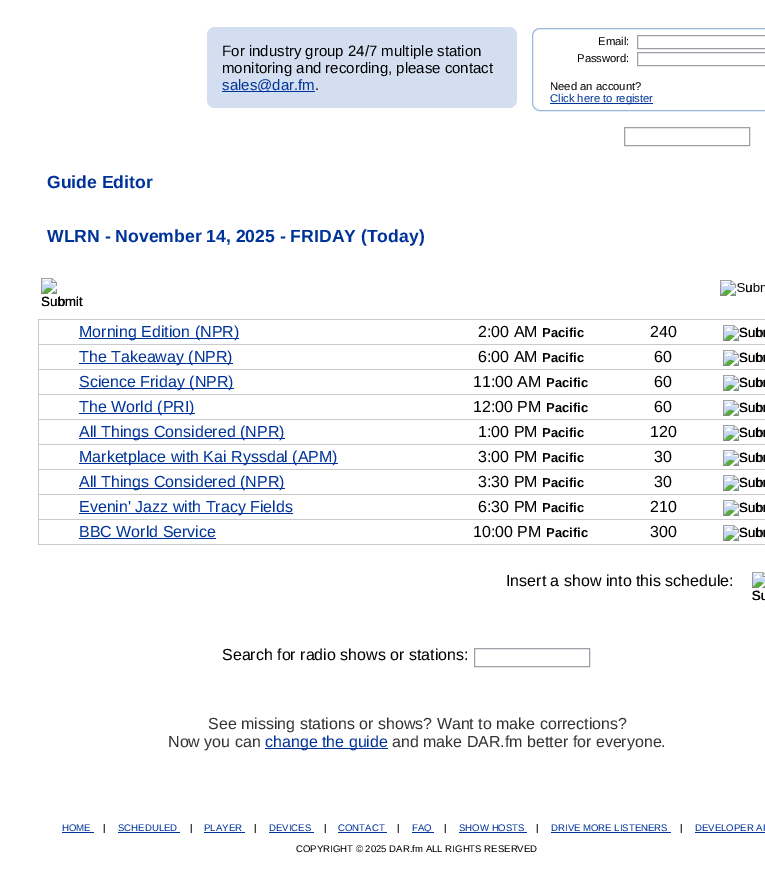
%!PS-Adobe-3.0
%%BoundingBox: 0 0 765 869
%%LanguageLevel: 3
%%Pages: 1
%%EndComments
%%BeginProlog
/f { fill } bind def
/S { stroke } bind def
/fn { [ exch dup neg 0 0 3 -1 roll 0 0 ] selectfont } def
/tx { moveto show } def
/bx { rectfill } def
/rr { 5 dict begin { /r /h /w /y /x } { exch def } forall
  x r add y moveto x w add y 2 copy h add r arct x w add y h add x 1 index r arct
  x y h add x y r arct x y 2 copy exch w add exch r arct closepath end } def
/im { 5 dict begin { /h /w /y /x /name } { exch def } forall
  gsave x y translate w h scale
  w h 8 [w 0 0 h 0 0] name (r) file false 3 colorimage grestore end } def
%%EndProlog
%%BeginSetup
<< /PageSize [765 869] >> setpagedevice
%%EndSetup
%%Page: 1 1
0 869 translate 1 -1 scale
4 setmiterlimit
1 setgray
0 0 765 869 bx
0.827 0.871 0.941 setrgbcolor
207 27 310 81 8 rr f
/LiberationSans-Regular 15 fn
0 setgray
(For industry group 24/7 multiple station) 222 56 tx
(monitoring and recording, please contact) 222 73 tx
0 0.2 0.6 setrgbcolor
222 91 93 1 bx
(sales@dar.fm) 222 90 tx
0 setgray
(.) 315 90 tx
0.604 0.714 0.871 setrgbcolor
532.5 28.5 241 82 7.5 rr S
/LiberationSans-Regular 11.25 fn
0 setgray
(Email:) 598 45 tx
0.616 0.627 0.655 setrgbcolor
637.5 35.5 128 13 rectstroke
0 setgray
(Password:) 577 62 tx
0.616 0.627 0.655 setrgbcolor
637.5 52.5 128 13 rectstroke
0 setgray
(Need an account?) 550 90 tx
0 0.2 0.6 setrgbcolor
550 103 103 1 bx
(Click here to register) 550 102 tx
0.616 0.627 0.655 setrgbcolor
624.5 127.5 125 18 rectstroke
/LiberationSans-Bold 17.6 fn
0 0.2 0.6 setrgbcolor
(Guide Editor) 47 188 tx
(WLRN - November 14, 2025 - FRIDAY \(Today\)) 47 242 tx
(image0.raw) 720 280 45 16 im
/LiberationSans-Regular 13.5 fn
0 setgray
(u) 745 292 tx
(image1.raw) 41 278 42 28 im
(Submit) 41 306 tx
0.792 setgray
38 319 727 1 bx
38 544 727 1 bx
38 319 1 226 bx
0 0.2 0.6 setrgbcolor
79 338 160 1 bx
/LiberationSans-Regular 16 fn
(Morning Edition \(NPR\)) 79 337 tx
0 setgray
(2:00 AM) 478 337 tx
/LiberationSans-Bold 13 fn
(Pacific) 542 337 tx
/LiberationSans-Regular 16 fn
(240) 650 337 tx
(image2.raw) 723 325 42 16 im
/LiberationSans-Regular 13.5 fn
(Subm) 739 337 tx
0.792 setgray
38 344 727 1 bx
0 0.2 0.6 setrgbcolor
79 363 154 1 bx
/LiberationSans-Regular 16 fn
(The Takeaway \(NPR\)) 79 362 tx
0 setgray
(6:00 AM) 478 362 tx
/LiberationSans-Bold 13 fn
(Pacific) 542 362 tx
/LiberationSans-Regular 16 fn
(60) 654 362 tx
(image2.raw) 723 350 42 16 im
/LiberationSans-Regular 13.5 fn
(Subm) 739 362 tx
0.792 setgray
38 369 727 1 bx
0 0.2 0.6 setrgbcolor
79 388 155 1 bx
/LiberationSans-Regular 16 fn
(Science Friday \(NPR\)) 79 387 tx
0 setgray
(11:00 AM) 473 387 tx
/LiberationSans-Bold 13 fn
(Pacific) 546 387 tx
/LiberationSans-Regular 16 fn
(60) 654 387 tx
(image2.raw) 723 375 42 16 im
/LiberationSans-Regular 13.5 fn
(Subm) 739 387 tx
0.792 setgray
38 394 727 1 bx
0 0.2 0.6 setrgbcolor
79 413 116 1 bx
/LiberationSans-Regular 16 fn
(The World \(PRI\)) 79 412 tx
0 setgray
(12:00 PM) 473 412 tx
/LiberationSans-Bold 13 fn
(Pacific) 546 412 tx
/LiberationSans-Regular 16 fn
(60) 654 412 tx
(image2.raw) 723 400 42 16 im
/LiberationSans-Regular 13.5 fn
(Subm) 739 412 tx
0.792 setgray
38 419 727 1 bx
0 0.2 0.6 setrgbcolor
79 438 206 1 bx
/LiberationSans-Regular 16 fn
(All Things Considered \(NPR\)) 79 437 tx
0 setgray
(1:00 PM) 478 437 tx
/LiberationSans-Bold 13 fn
(Pacific) 542 437 tx
/LiberationSans-Regular 16 fn
(120) 650 437 tx
(image2.raw) 723 425 42 16 im
/LiberationSans-Regular 13.5 fn
(Subm) 739 437 tx
0.792 setgray
38 444 727 1 bx
0 0.2 0.6 setrgbcolor
79 463 259 1 bx
/LiberationSans-Regular 16 fn
(Marketplace with Kai Ryssdal \(APM\)) 79 462 tx
0 setgray
(3:00 PM) 478 462 tx
/LiberationSans-Bold 13 fn
(Pacific) 542 462 tx
/LiberationSans-Regular 16 fn
(30) 654 462 tx
(image2.raw) 723 450 42 16 im
/LiberationSans-Regular 13.5 fn
(Subm) 739 462 tx
0.792 setgray
38 469 727 1 bx
0 0.2 0.6 setrgbcolor
79 488 206 1 bx
/LiberationSans-Regular 16 fn
(All Things Considered \(NPR\)) 79 487 tx
0 setgray
(3:30 PM) 478 487 tx
/LiberationSans-Bold 13 fn
(Pacific) 542 487 tx
/LiberationSans-Regular 16 fn
(30) 654 487 tx
(image2.raw) 723 475 42 16 im
/LiberationSans-Regular 13.5 fn
(Subm) 739 487 tx
0.792 setgray
38 494 727 1 bx
0 0.2 0.6 setrgbcolor
79 513 214 1 bx
/LiberationSans-Regular 16 fn
(Evenin' Jazz with Tracy Fields) 79 512 tx
0 setgray
(6:30 PM) 478 512 tx
/LiberationSans-Bold 13 fn
(Pacific) 542 512 tx
/LiberationSans-Regular 16 fn
(210) 650 512 tx
(image2.raw) 723 500 42 16 im
/LiberationSans-Regular 13.5 fn
(Subm) 739 512 tx
0.792 setgray
38 519 727 1 bx
/LiberationSans-Regular 16 fn
0 0.2 0.6 setrgbcolor
(BBC World Service) 79 537 tx
79 538 137 1 bx
0 setgray
(10:00 PM) 473 537 tx
/LiberationSans-Bold 13 fn
(Pacific) 546 537 tx
/LiberationSans-Regular 16 fn
(300) 650 537 tx
(image2.raw) 723 525 42 16 im
/LiberationSans-Regular 13.5 fn
(Subm) 739 537 tx
/LiberationSans-Regular 16 fn
(Insert a show into this schedule:) 506 586 tx
(image3.raw) 752 572 13 28 im
/LiberationSans-Regular 13.5 fn
(Su) 752 600 tx
/LiberationSans-Regular 16 fn
(Search for radio shows or stations:) 222 660 tx
0.616 0.627 0.655 setrgbcolor
474.5 648.5 115 18 rectstroke
0.2 setgray
(See missing stations or shows? Want to make corrections?) 208 729 tx
(Now you can) 168 747 tx
0 0.2 0.6 setrgbcolor
265 748 123 1 bx
(change the guide) 265 747 tx
0.2 setgray
(and make DAR.fm better for everyone.) 392 747 tx
/LiberationSans-Regular 9.6 fn
0 0.2 0.6 setrgbcolor
(HOME) 62 831 tx
62 832 32 1 bx
0 setgray
(|) 103 831 tx
0 0.2 0.6 setrgbcolor
(SCHEDULED) 118 831 tx
118 832 62 1 bx
0 setgray
(|) 190 831 tx
0 0.2 0.6 setrgbcolor
(PLAYER) 204 831 tx
204 832 41 1 bx
0 setgray
(|) 254 831 tx
0 0.2 0.6 setrgbcolor
(DEVICES) 269 831 tx
269 832 45 1 bx
0 setgray
(|) 324 831 tx
0 0.2 0.6 setrgbcolor
(CONTACT) 338 831 tx
338 832 49 1 bx
0 setgray
(|) 397 831 tx
0 0.2 0.6 setrgbcolor
412 832 22 1 bx
(FAQ) 412 831 tx
0 setgray
(|) 444 831 tx
0 0.2 0.6 setrgbcolor
(SHOW HOSTS) 459 831 tx
459 832 68 1 bx
0 setgray
(|) 536 831 tx
0 0.2 0.6 setrgbcolor
(DRIVE MORE LISTENERS) 551 831 tx
551 832 120 1 bx
0 setgray
(|) 680 831 tx
0 0.2 0.6 setrgbcolor
(DEVELOPER AP) 695 831 tx
695 832 70 1 bx
0 setgray
(COPYRIGHT © 2025 DAR.fm ALL RIGHTS RESERVED) 296 852 tx
showpage
%%EOF
